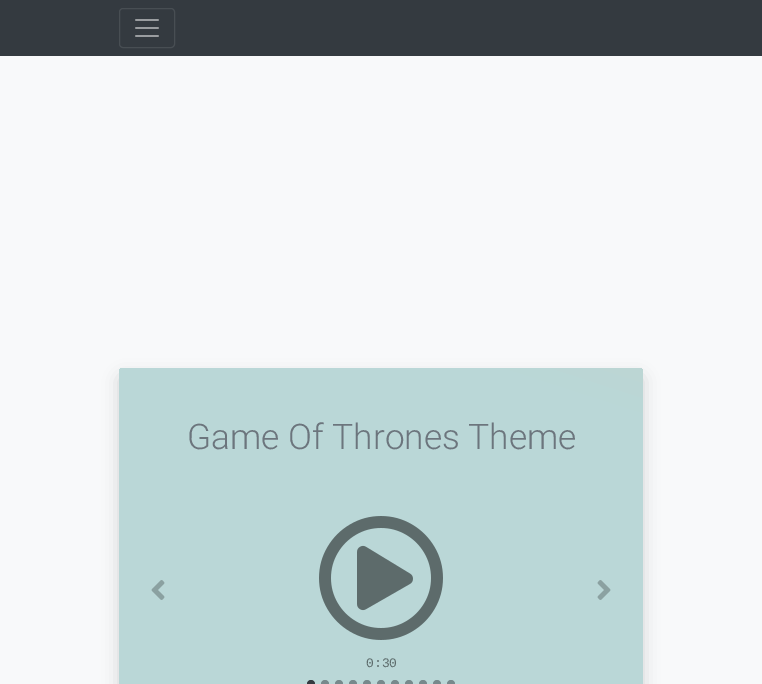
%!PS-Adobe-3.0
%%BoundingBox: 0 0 762 684
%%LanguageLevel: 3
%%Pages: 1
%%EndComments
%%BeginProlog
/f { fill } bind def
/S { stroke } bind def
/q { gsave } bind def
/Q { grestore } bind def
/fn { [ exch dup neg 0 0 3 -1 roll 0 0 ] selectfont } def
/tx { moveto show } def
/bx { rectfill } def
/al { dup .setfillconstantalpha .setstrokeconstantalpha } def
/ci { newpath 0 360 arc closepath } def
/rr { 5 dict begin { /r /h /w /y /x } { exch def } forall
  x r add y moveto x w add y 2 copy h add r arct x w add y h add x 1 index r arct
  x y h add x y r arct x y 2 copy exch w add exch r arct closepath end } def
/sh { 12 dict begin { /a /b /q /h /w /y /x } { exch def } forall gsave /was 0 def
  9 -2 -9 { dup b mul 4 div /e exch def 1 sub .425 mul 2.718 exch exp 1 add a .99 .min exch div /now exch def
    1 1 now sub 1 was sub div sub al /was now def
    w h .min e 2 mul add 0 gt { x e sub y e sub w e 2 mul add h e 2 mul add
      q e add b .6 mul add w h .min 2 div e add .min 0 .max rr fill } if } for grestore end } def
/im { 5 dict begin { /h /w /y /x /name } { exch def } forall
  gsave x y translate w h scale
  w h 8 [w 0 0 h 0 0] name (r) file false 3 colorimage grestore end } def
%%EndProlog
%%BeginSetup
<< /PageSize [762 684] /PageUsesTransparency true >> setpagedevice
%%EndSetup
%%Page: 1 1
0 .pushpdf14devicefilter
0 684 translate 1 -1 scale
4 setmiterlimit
0.973 0.976 0.98 setrgbcolor
0 0 762 684 bx
0.204 0.227 0.251 setrgbcolor
0 0 762 56 bx
0.282 0.306 0.325 setrgbcolor
119.5 8.5 55 39 3.5 rr S
(image0.raw) 135 19 24 18 im
0 setgray
119 376 524 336 4 8 0.15 sh
q 119 368 524 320 4 rr clip newpath
<< /ShadingType 2 /ColorSpace /DeviceRGB /Coords [752 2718 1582 162] /Extend [true true] /Function << /FunctionType 3 /Domain [0 1] /Functions [<< /FunctionType 2 /Domain [0 1] /C0 [0.843 0.816 0.729] /C1 [0.816 0.843 0.729] /N 1 >> << /FunctionType 2 /Domain [0 1] /C0 [0.816 0.843 0.729] /C1 [0.733 0.843 0.729] /N 1 >> << /FunctionType 2 /Domain [0 1] /C0 [0.733 0.843 0.729] /C1 [0.729 0.843 0.843] /N 1 >> << /FunctionType 2 /Domain [0 1] /C0 [0.729 0.843 0.843] /C1 [0.729 0.843 0.843] /N 1 >> << /FunctionType 2 /Domain [0 1] /C0 [0.729 0.843 0.843] /C1 [0.843 0.816 0.729] /N 1 >>] /Bounds [0.2 0.4 0.6 0.8] /Encode [0 1 0 1 0 1 0 1 0 1] >> >> shfill Q
/Roboto-Light 35.25 fn
0.424 0.459 0.49 setrgbcolor
(Game Of Thrones Theme) 187 449 tx
(image1.raw) 151 580 14 20 im
(image2.raw) 597 580 14 20 im
(image3.raw) 319 516 124 124 im
/LiberationMono-Regular 13 fn
0.365 0.424 0.424 setrgbcolor
(0:30) 366 667 tx
0.204 0.227 0.251 setrgbcolor
311 684 4 ci f
0.467 0.537 0.549 setrgbcolor
325 684 4 ci f
339 684 4 ci f
353 684 4 ci f
367 684 4 ci f
381 684 4 ci f
395 684 4 ci f
409 684 4 ci f
423 684 4 ci f
437 684 4 ci f
451 684 4 ci f
.poppdf14devicefilter showpage
%%EOF
